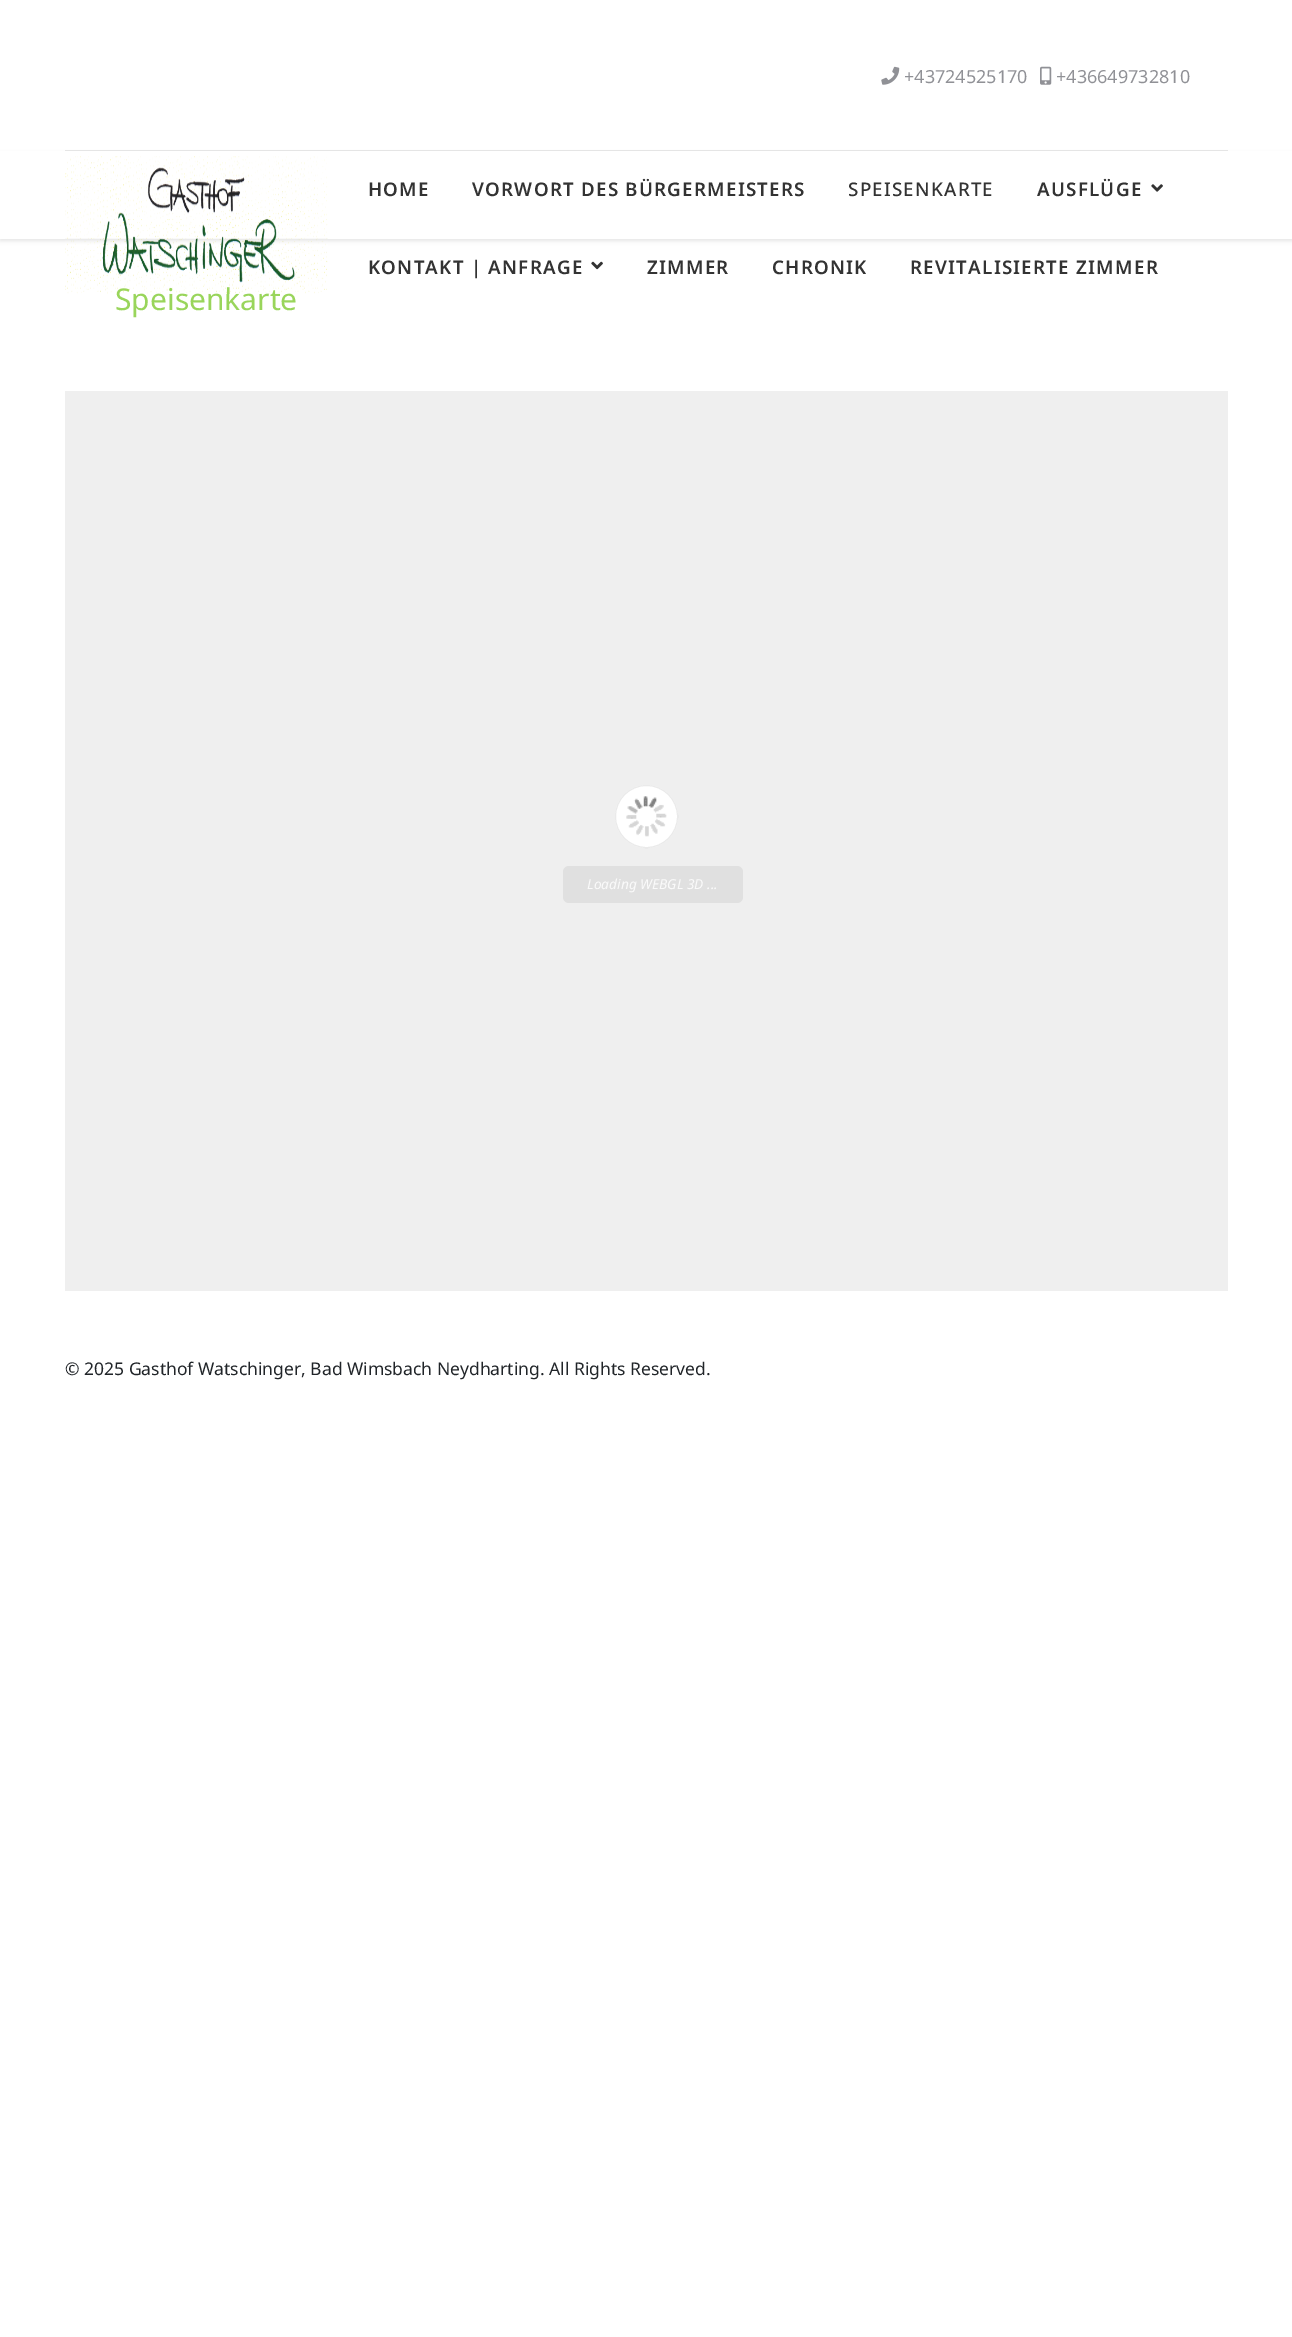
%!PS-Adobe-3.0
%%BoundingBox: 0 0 1292 2337
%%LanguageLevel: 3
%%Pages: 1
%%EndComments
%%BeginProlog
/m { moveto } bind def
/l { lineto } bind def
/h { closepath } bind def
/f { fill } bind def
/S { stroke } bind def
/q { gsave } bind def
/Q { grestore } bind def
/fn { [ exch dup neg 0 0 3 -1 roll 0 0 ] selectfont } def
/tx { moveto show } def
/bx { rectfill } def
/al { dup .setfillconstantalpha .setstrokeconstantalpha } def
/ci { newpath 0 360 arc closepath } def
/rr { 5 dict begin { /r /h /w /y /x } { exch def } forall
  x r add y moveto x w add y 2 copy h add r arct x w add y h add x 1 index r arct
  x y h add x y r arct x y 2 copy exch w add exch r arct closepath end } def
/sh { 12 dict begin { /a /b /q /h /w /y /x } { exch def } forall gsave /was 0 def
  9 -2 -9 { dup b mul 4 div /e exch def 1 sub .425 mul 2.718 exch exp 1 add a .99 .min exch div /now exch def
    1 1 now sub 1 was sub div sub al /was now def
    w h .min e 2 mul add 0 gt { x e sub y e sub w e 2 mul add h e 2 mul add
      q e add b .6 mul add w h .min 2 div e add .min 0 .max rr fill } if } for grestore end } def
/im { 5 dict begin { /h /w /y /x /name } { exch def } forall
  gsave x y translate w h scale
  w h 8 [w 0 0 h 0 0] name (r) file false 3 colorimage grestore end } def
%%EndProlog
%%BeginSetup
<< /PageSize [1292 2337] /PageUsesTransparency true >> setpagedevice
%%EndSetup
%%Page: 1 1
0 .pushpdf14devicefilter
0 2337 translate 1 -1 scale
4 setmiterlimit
1 setgray
0 0 1292 2337 bx
q
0 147 m 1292 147 l 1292 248 l 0 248 l h 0 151 m 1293 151 l 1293 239 l 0 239 l h eoclip newpath
0 setgray
0 154 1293 87 0 2 0.1 sh
Q
0.898 setgray
65 150 1163 1 bx
(image0.raw) 881 66 19 19 im
/NotoSans-Regular 18 fn
0.565 0.569 0.588 setrgbcolor
(+43724525170) 904 83 tx
(image1.raw) 1040 66 12 19 im
(+436649732810) 1056 83 tx
/NotoSans-Regular 30 fn
0.6 0.835 0.357 setrgbcolor
(Speisenkarte) 115 310 tx
(image2.raw) 65 156 263 138 im
/NotoSans-SemiBold 18.75 fn
0.2 setgray
368 196 m 1.25 0 (HOME) ashow
472 196 m 1.25 0 (VORWORT DES BÜRGERMEISTERS) ashow
/NotoSans-Medium 18.75 fn
848 196 m 1.25 0 (SPEISENKARTE) ashow
/NotoSans-SemiBold 18.75 fn
1037 196 m 1.25 0 (AUSFLÜGE) ashow
(image3.raw) 1151 184 12 8 im
368 274 m 1.25 0 (KONTAKT | ANFRAGE) ashow
(image4.raw) 591 261 12 9 im
647 274 m 1.25 0 (ZIMMER) ashow
772 274 m 1.25 0 (CHRONIK) ashow
910 274 m 1.25 0 (REVITALISIERTE ZIMMER) ashow
0.937 setgray
65 391 1163 900 bx
1 setgray
646.5 816.5 31.5 ci f
0.2 al
0.588 setgray
646.5 816.5 31 ci S
1 al
(image5.raw) 626 796 41 41 im
0.878 setgray
563 866 180 37 6 rr f
/NotoSans-Italic 13.75 fn
0.98 setgray
(Loading WEBGL 3D ...) 587 889 tx
/NotoSans-Regular 17.5 fn
0.129 0.145 0.161 setrgbcolor
(© 2025 Gasthof Watschinger, Bad Wimsbach Neydharting. All Rights Reserved.) 65 1375 tx
.poppdf14devicefilter showpage
%%EOF
